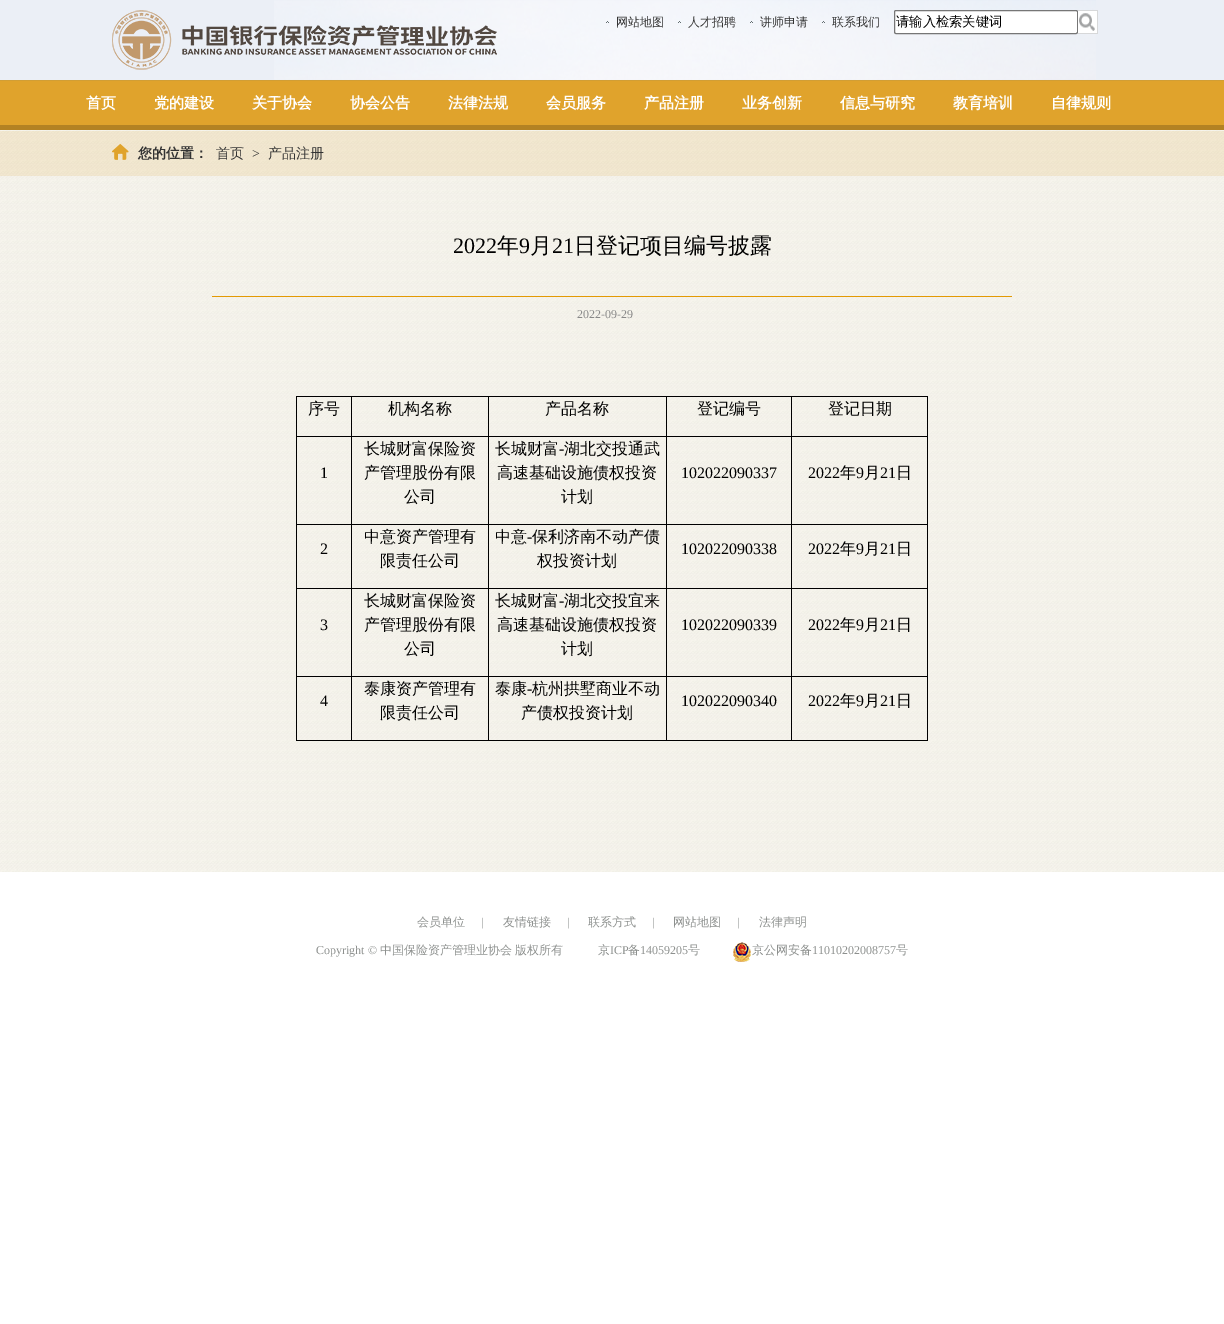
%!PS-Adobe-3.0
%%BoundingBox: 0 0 1224 1324
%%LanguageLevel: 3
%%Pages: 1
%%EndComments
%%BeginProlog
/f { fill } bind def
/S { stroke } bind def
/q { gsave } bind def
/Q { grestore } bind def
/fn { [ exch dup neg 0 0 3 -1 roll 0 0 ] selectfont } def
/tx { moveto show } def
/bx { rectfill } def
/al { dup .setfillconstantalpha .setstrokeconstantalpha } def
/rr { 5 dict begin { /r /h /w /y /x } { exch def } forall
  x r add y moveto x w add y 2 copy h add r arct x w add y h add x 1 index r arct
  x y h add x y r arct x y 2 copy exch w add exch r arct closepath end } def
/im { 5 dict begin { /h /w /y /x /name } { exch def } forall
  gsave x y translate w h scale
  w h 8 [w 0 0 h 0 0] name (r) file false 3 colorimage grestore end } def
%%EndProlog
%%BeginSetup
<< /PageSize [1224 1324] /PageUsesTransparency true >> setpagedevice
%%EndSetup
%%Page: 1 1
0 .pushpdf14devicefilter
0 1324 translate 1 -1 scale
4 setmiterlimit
1 setgray
0 0 1224 1324 bx
0.922 0.937 0.965 setrgbcolor
0 0 1224 80 bx
(image0.raw) 274 0 822 80 im
(image1.raw) 112 10 385 60 im
(image2.raw) 606 21 3 2 im
/WenQuanYiZenHei-Medium 12 fn
0.2 setgray
(网站地图) 616 26 tx
(image3.raw) 678 21 3 2 im
(人才招聘) 688 26 tx
(image4.raw) 750 21 3 2 im
(讲师申请) 760 26 tx
(image5.raw) 822 21 3 2 im
(联系我们) 832 26 tx
1 setgray
894.5 10.5 183 23 1.5 rr q f Q
0.463 setgray
S
/WenQuanYiZenHei-Medium 13.25 fn
0 setgray
(请输入检索关键词) 896 26 tx
1 setgray
1078 11 19 22 bx
0.843 0.847 0.851 setrgbcolor
1078 10 20 1 bx
1097 10 1 24 bx
1078 33 20 1 bx
(image6.raw) 1079 13 16 18 im
0.878 0.639 0.173 setrgbcolor
0 81 1224 44 bx
0.82 0.62 0.208 setrgbcolor
0 80 1224 1 bx
0.702 0.51 0.137 setrgbcolor
0 125 1224 5 bx
/WenQuanYiZenHei-Bold 15 fn
1 setgray
(首页) 86 108 tx
(党的建设) 154 108 tx
(关于协会) 252 108 tx
(协会公告) 350 108 tx
(法律法规) 448 108 tx
(会员服务) 546 108 tx
(产品注册) 644 108 tx
(业务创新) 742 108 tx
(信息与研究) 840 108 tx
(教育培训) 953 108 tx
(自律规则) 1051 108 tx
(image7.raw) 0 130 1224 742 im
0.15 al
0.867 0.631 0.184 setrgbcolor
0 131 1224 45 bx
1 al
(image8.raw) 112 144 17 16 im
/WenQuanYiZenHei-Bold 14 fn
0.2 setgray
(您的位置：) 138 158 tx
/WenQuanYiZenHei-Medium 14 fn
(首页) 216 158 tx
/LiberationSerif-Regular 14 fn
(>) 252 158 tx
/WenQuanYiZenHei-Medium 14 fn
(产品注册) 268 158 tx
0.89 0.604 0.016 setrgbcolor
212 296 800 1 bx
/LiberationSerif-Regular 22 fn
0 setgray
(2022) 453 253 tx
/WenQuanYiZenHei-Medium 22 fn
(年) 497 253 tx
/LiberationSerif-Regular 22 fn
(9) 519 253 tx
/WenQuanYiZenHei-Medium 22 fn
(月) 530 253 tx
/LiberationSerif-Regular 22 fn
(21) 552 253 tx
/WenQuanYiZenHei-Medium 22 fn
(日登记项目编号披露) 574 253 tx
/LiberationSerif-Regular 12 fn
0.533 setgray
(2022-09-29) 577 318 tx
0 setgray
296 396 632 1 bx
927 436 1 305 bx
927 396 1 41 bx
791 740 137 1 bx
791 676 1 65 bx
791 676 137 1 bx
791 588 1 89 bx
791 588 137 1 bx
791 524 1 65 bx
791 524 137 1 bx
791 436 1 89 bx
791 436 137 1 bx
791 396 1 41 bx
666 740 126 1 bx
666 676 1 65 bx
666 676 126 1 bx
666 588 1 89 bx
666 588 126 1 bx
666 524 1 65 bx
666 524 126 1 bx
666 436 1 89 bx
666 436 126 1 bx
666 396 1 41 bx
488 740 179 1 bx
488 676 1 65 bx
488 676 179 1 bx
488 588 1 89 bx
488 588 179 1 bx
488 524 1 65 bx
488 524 179 1 bx
488 436 1 89 bx
488 436 179 1 bx
488 396 1 41 bx
351 740 138 1 bx
351 676 1 65 bx
351 676 138 1 bx
351 588 1 89 bx
351 588 138 1 bx
351 524 1 65 bx
351 524 138 1 bx
351 436 1 89 bx
351 436 138 1 bx
351 396 1 41 bx
296 740 56 1 bx
296 676 1 65 bx
296 676 56 1 bx
296 588 1 89 bx
296 588 56 1 bx
296 524 1 65 bx
296 524 56 1 bx
296 436 1 89 bx
296 436 56 1 bx
296 396 1 41 bx
/WenQuanYiZenHei-Medium 16 fn
(序号) 308 414 tx
(机构名称) 388 414 tx
(产品名称) 545 414 tx
(登记编号) 697 414 tx
(登记日期) 828 414 tx
/LiberationSerif-Regular 16 fn
(1) 320 478 tx
/WenQuanYiZenHei-Medium 16 fn
(长城财富保险资) 364 454 tx
(产管理股份有限) 364 478 tx
(公司) 404 502 tx
(长城财富) 495 454 tx
/LiberationSerif-Regular 16 fn
(-) 559 454 tx
/WenQuanYiZenHei-Medium 16 fn
(湖北交投通武) 564 454 tx
(高速基础设施债权投资) 497 478 tx
(计划) 561 502 tx
/LiberationSerif-Regular 16 fn
(102022090337) 681 478 tx
(2022) 808 478 tx
/WenQuanYiZenHei-Medium 16 fn
(年) 840 478 tx
/LiberationSerif-Regular 16 fn
(9) 856 478 tx
/WenQuanYiZenHei-Medium 16 fn
(月) 864 478 tx
/LiberationSerif-Regular 16 fn
(21) 880 478 tx
/WenQuanYiZenHei-Medium 16 fn
(日) 896 478 tx
/LiberationSerif-Regular 16 fn
(2) 320 554 tx
/WenQuanYiZenHei-Medium 16 fn
(中意资产管理有) 364 542 tx
(限责任公司) 380 566 tx
(中意) 495 542 tx
/LiberationSerif-Regular 16 fn
(-) 527 542 tx
/WenQuanYiZenHei-Medium 16 fn
(保利济南不动产债) 532 542 tx
(权投资计划) 537 566 tx
/LiberationSerif-Regular 16 fn
(102022090338) 681 554 tx
(2022) 808 554 tx
/WenQuanYiZenHei-Medium 16 fn
(年) 840 554 tx
/LiberationSerif-Regular 16 fn
(9) 856 554 tx
/WenQuanYiZenHei-Medium 16 fn
(月) 864 554 tx
/LiberationSerif-Regular 16 fn
(21) 880 554 tx
/WenQuanYiZenHei-Medium 16 fn
(日) 896 554 tx
/LiberationSerif-Regular 16 fn
(3) 320 630 tx
/WenQuanYiZenHei-Medium 16 fn
(长城财富保险资) 364 606 tx
(产管理股份有限) 364 630 tx
(公司) 404 654 tx
(长城财富) 495 606 tx
/LiberationSerif-Regular 16 fn
(-) 559 606 tx
/WenQuanYiZenHei-Medium 16 fn
(湖北交投宜来) 564 606 tx
(高速基础设施债权投资) 497 630 tx
(计划) 561 654 tx
/LiberationSerif-Regular 16 fn
(102022090339) 681 630 tx
(2022) 808 630 tx
/WenQuanYiZenHei-Medium 16 fn
(年) 840 630 tx
/LiberationSerif-Regular 16 fn
(9) 856 630 tx
/WenQuanYiZenHei-Medium 16 fn
(月) 864 630 tx
/LiberationSerif-Regular 16 fn
(21) 880 630 tx
/WenQuanYiZenHei-Medium 16 fn
(日) 896 630 tx
/LiberationSerif-Regular 16 fn
(4) 320 706 tx
/WenQuanYiZenHei-Medium 16 fn
(泰康资产管理有) 364 694 tx
(限责任公司) 380 718 tx
(泰康) 495 694 tx
/LiberationSerif-Regular 16 fn
(-) 527 694 tx
/WenQuanYiZenHei-Medium 16 fn
(杭州拱墅商业不动) 532 694 tx
(产债权投资计划) 521 718 tx
/LiberationSerif-Regular 16 fn
(102022090340) 681 706 tx
(2022) 808 706 tx
/WenQuanYiZenHei-Medium 16 fn
(年) 840 706 tx
/LiberationSerif-Regular 16 fn
(9) 856 706 tx
/WenQuanYiZenHei-Medium 16 fn
(月) 864 706 tx
/LiberationSerif-Regular 16 fn
(21) 880 706 tx
/WenQuanYiZenHei-Medium 16 fn
(日) 896 706 tx
/WenQuanYiZenHei-Medium 12 fn
0.553 0.565 0.557 setrgbcolor
(会员单位) 417 926 tx
/LiberationSerif-Regular 12 fn
(|) 481 926 tx
/WenQuanYiZenHei-Medium 12 fn
(友情链接) 503 926 tx
/LiberationSerif-Regular 12 fn
(|) 567 926 tx
/WenQuanYiZenHei-Medium 12 fn
(联系方式) 588 926 tx
/LiberationSerif-Regular 12 fn
(|) 652 926 tx
/WenQuanYiZenHei-Medium 12 fn
(网站地图) 673 926 tx
/LiberationSerif-Regular 12 fn
(|) 737 926 tx
/WenQuanYiZenHei-Medium 12 fn
(法律声明) 759 926 tx
/LiberationSerif-Regular 12 fn
(Copyright ©) 316 954 tx
/WenQuanYiZenHei-Medium 12 fn
(中国保险资产管理业协会) 380 954 tx
(版权所有) 515 954 tx
(京) 598 954 tx
/LiberationSerif-Regular 12 fn
(ICP) 610 954 tx
/WenQuanYiZenHei-Medium 12 fn
(备) 628 954 tx
/LiberationSerif-Regular 12 fn
(14059205) 640 954 tx
/WenQuanYiZenHei-Medium 12 fn
(号) 688 954 tx
(image9.raw) 733 942 18 20 im
(京公网安备) 752 954 tx
/LiberationSerif-Regular 12 fn
(11010202008757) 812 954 tx
/WenQuanYiZenHei-Medium 12 fn
(号) 896 954 tx
.poppdf14devicefilter showpage
%%EOF
